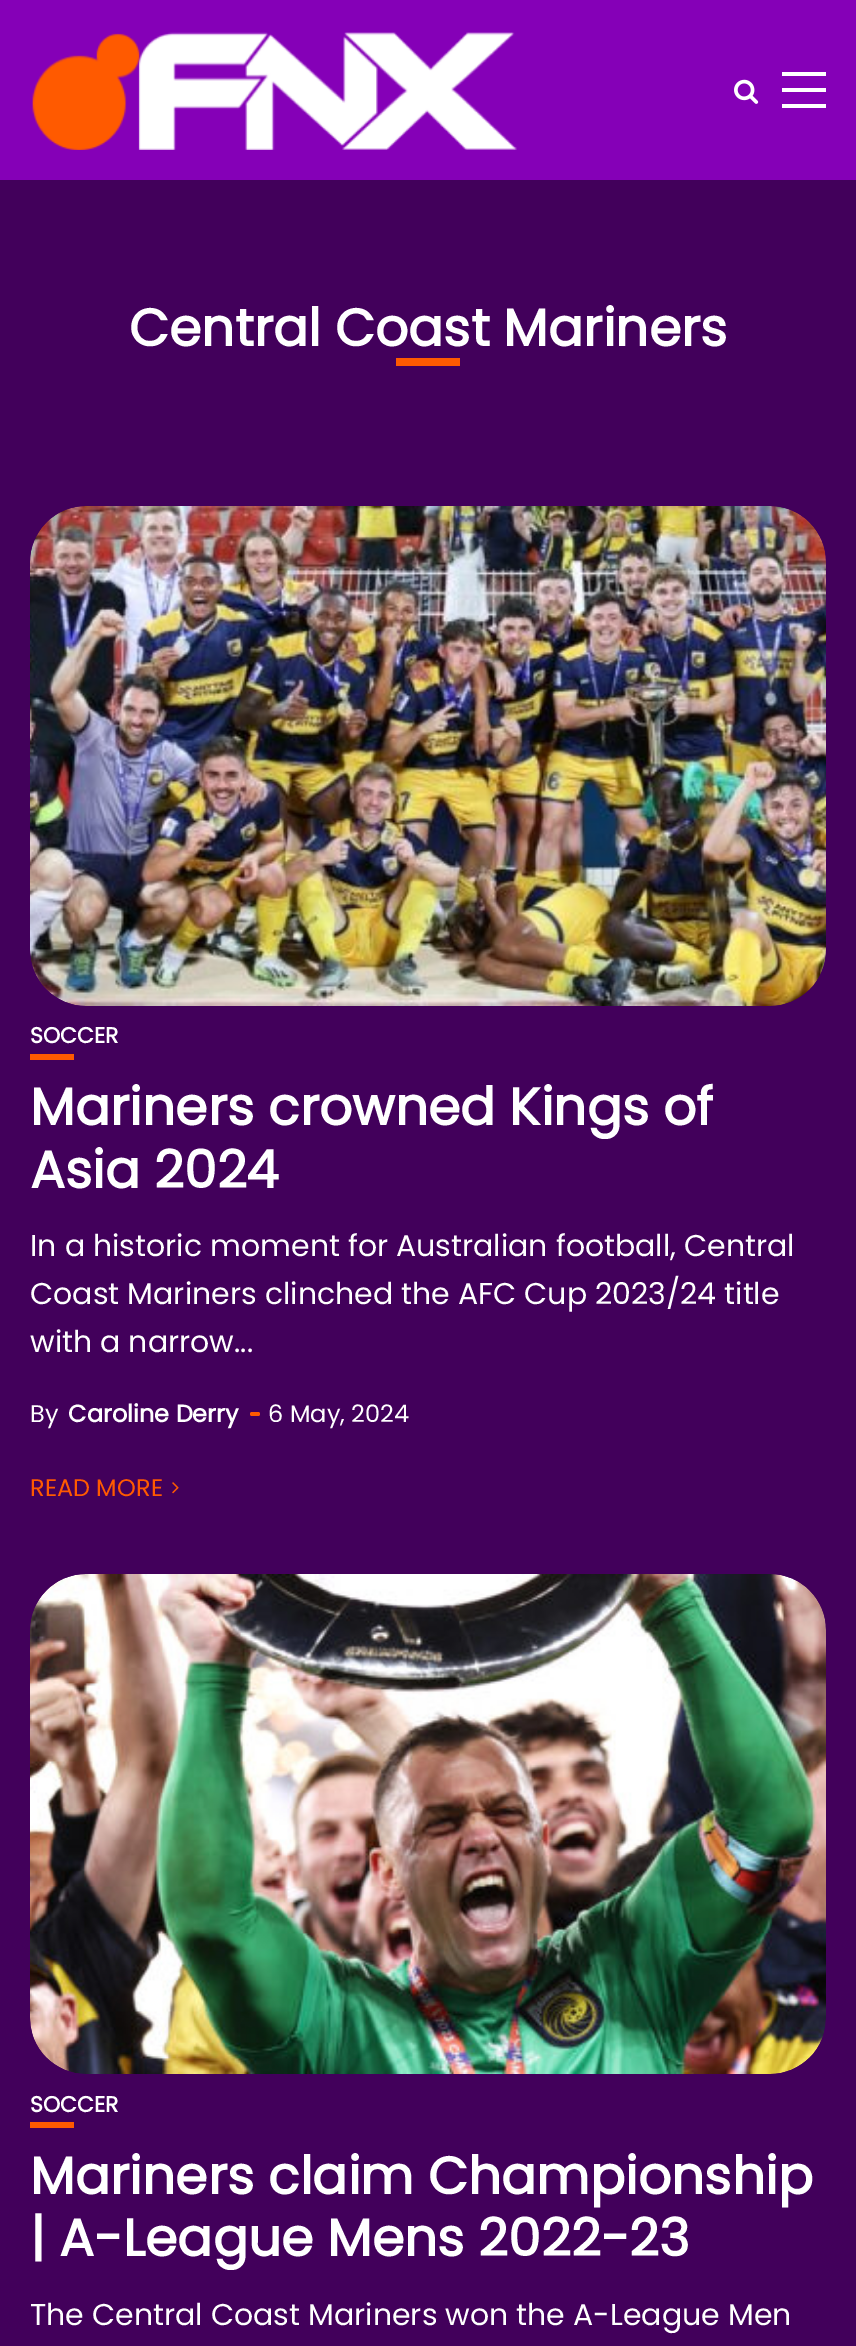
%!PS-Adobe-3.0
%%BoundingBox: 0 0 856 2346
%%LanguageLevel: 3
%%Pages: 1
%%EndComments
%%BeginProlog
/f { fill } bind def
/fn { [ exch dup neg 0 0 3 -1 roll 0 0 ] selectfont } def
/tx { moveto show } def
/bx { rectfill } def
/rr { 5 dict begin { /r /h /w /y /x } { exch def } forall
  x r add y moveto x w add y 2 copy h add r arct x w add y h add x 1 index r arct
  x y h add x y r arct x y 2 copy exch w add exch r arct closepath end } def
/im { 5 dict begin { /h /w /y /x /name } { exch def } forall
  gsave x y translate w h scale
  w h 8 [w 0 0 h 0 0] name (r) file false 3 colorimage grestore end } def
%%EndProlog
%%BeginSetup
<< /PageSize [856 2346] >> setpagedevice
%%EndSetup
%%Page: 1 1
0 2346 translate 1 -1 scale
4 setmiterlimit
0.259 0 0.357 setrgbcolor
0 0 856 2346 bx
0.522 0 0.718 setrgbcolor
0 0 856 180 bx
(image0.raw) 32 32 485 118 im
(image1.raw) 734 79 25 25 im
1 setgray
782 72 44 4 bx
782 88 44 4 bx
782 104 44 4 bx
/Poppins-Bold 52 fn
(Central Coast Mariners) 129 346 tx
1 0.353 0 setrgbcolor
396 358 64 8 bx
(image2.raw) 30 506 796 500 im
/Poppins-Bold 22 fn
1 setgray
(SOCCER) 30 1043 tx
1 0.353 0 setrgbcolor
30 1054 44 6 bx
/Poppins-Bold 52 fn
1 setgray
(Mariners crowned Kings of) 30 1125 tx
(Asia 2024) 30 1188 tx
/Poppins-Regular 30 fn
(In a historic moment for Australian football, Central) 30 1256 tx
(Coast Mariners clinched the AFC Cup 2023/24 title) 30 1304 tx
(with a narrow...) 30 1352 tx
/Poppins-Regular 24 fn
(By) 30 1422 tx
/Poppins-Bold 24 fn
(Caroline Derry) 68 1422 tx
1 0.353 0 setrgbcolor
250 1412 10 4 2 rr f
/Poppins-Regular 24 fn
1 setgray
(6 May, 2024) 268 1422 tx
1 0.353 0 setrgbcolor
(READ MORE) 30 1496 tx
(image3.raw) 172 1482 7 12 im
(image4.raw) 30 1574 796 500 im
/Poppins-Bold 22 fn
1 setgray
(SOCCER) 30 2112 tx
1 0.353 0 setrgbcolor
30 2122 44 6 bx
/Poppins-Bold 52 fn
1 setgray
(Mariners claim Championship) 30 2194 tx
(| A-League Mens 2022-23) 30 2256 tx
/Poppins-Regular 30 fn
(The Central Coast Mariners won the A-League Men) 30 2325 tx
showpage
%%EOF
